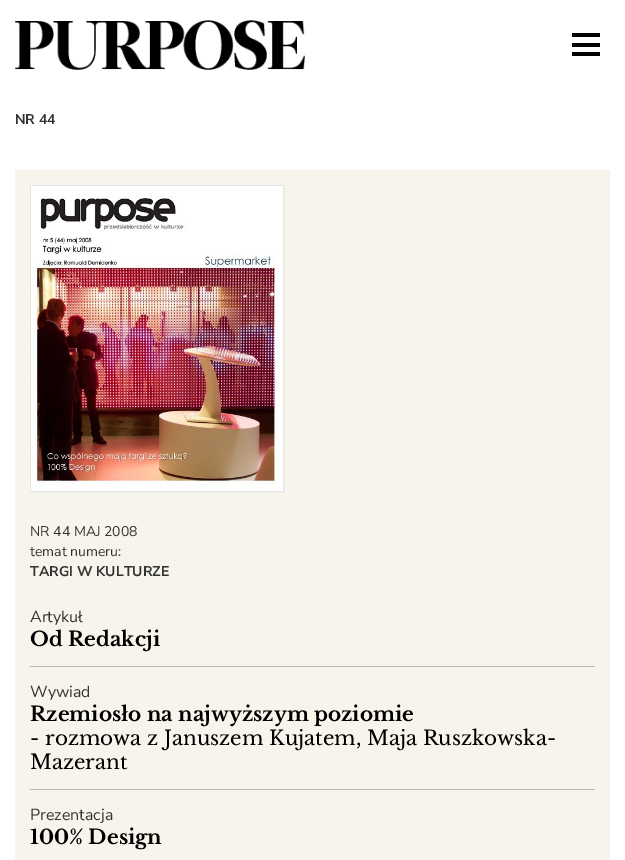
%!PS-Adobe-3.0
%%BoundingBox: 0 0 625 860
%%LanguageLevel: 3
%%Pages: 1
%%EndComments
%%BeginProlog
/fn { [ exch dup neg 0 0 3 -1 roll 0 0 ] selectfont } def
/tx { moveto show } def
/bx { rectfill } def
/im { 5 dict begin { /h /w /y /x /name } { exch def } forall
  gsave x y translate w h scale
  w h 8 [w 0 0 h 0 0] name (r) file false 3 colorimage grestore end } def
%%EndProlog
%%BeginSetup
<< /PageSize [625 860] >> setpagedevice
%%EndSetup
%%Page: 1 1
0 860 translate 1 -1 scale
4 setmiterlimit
1 setgray
0 0 625 860 bx
(image0.raw) 15 20 290 50 im
0 setgray
572 33 28 4 bx
572 43 28 4 bx
572 52 28 4 bx
/NunitoSans-Bold 14 fn
0.2 setgray
(NR 44) 15 124 tx
0.969 0.961 0.922 setrgbcolor
15 170 595 690 bx
0.894 setgray
30.5 185.5 253 306 rectstroke
(image1.raw) 31 186 252 305 im
/NunitoSans-Regular 14 fn
0.2 setgray
(NR 44 MAJ 2008) 30 536 tx
(temat numeru:) 30 556 tx
/NunitoSans-Bold 14 fn
(TARGI W KULTURZE) 30 576 tx
0.718 setgray
30 666 565 1 bx
/NunitoSans-Regular 16 fn
0.2 setgray
(Artykuł) 30 622 tx
/LibreBaskerville-Bold 20 fn
0 setgray
(Od Redakcji) 30 646 tx
0.718 setgray
30 789 565 1 bx
/NunitoSans-Regular 16 fn
0.2 setgray
(Wywiad) 30 697 tx
/LibreBaskerville-Bold 20 fn
0 setgray
(Rzemiosło na najwyższym poziomie) 30 721 tx
/LibreBaskerville-Regular 20 fn
(- rozmowa z Januszem Kujatem, Maja Ruszkowska-) 30 745 tx
(Mazerant) 30 769 tx
/NunitoSans-Regular 16 fn
0.2 setgray
(Prezentacja) 30 820 tx
/LibreBaskerville-Bold 20 fn
0 setgray
(100% Design) 30 844 tx
showpage
%%EOF
